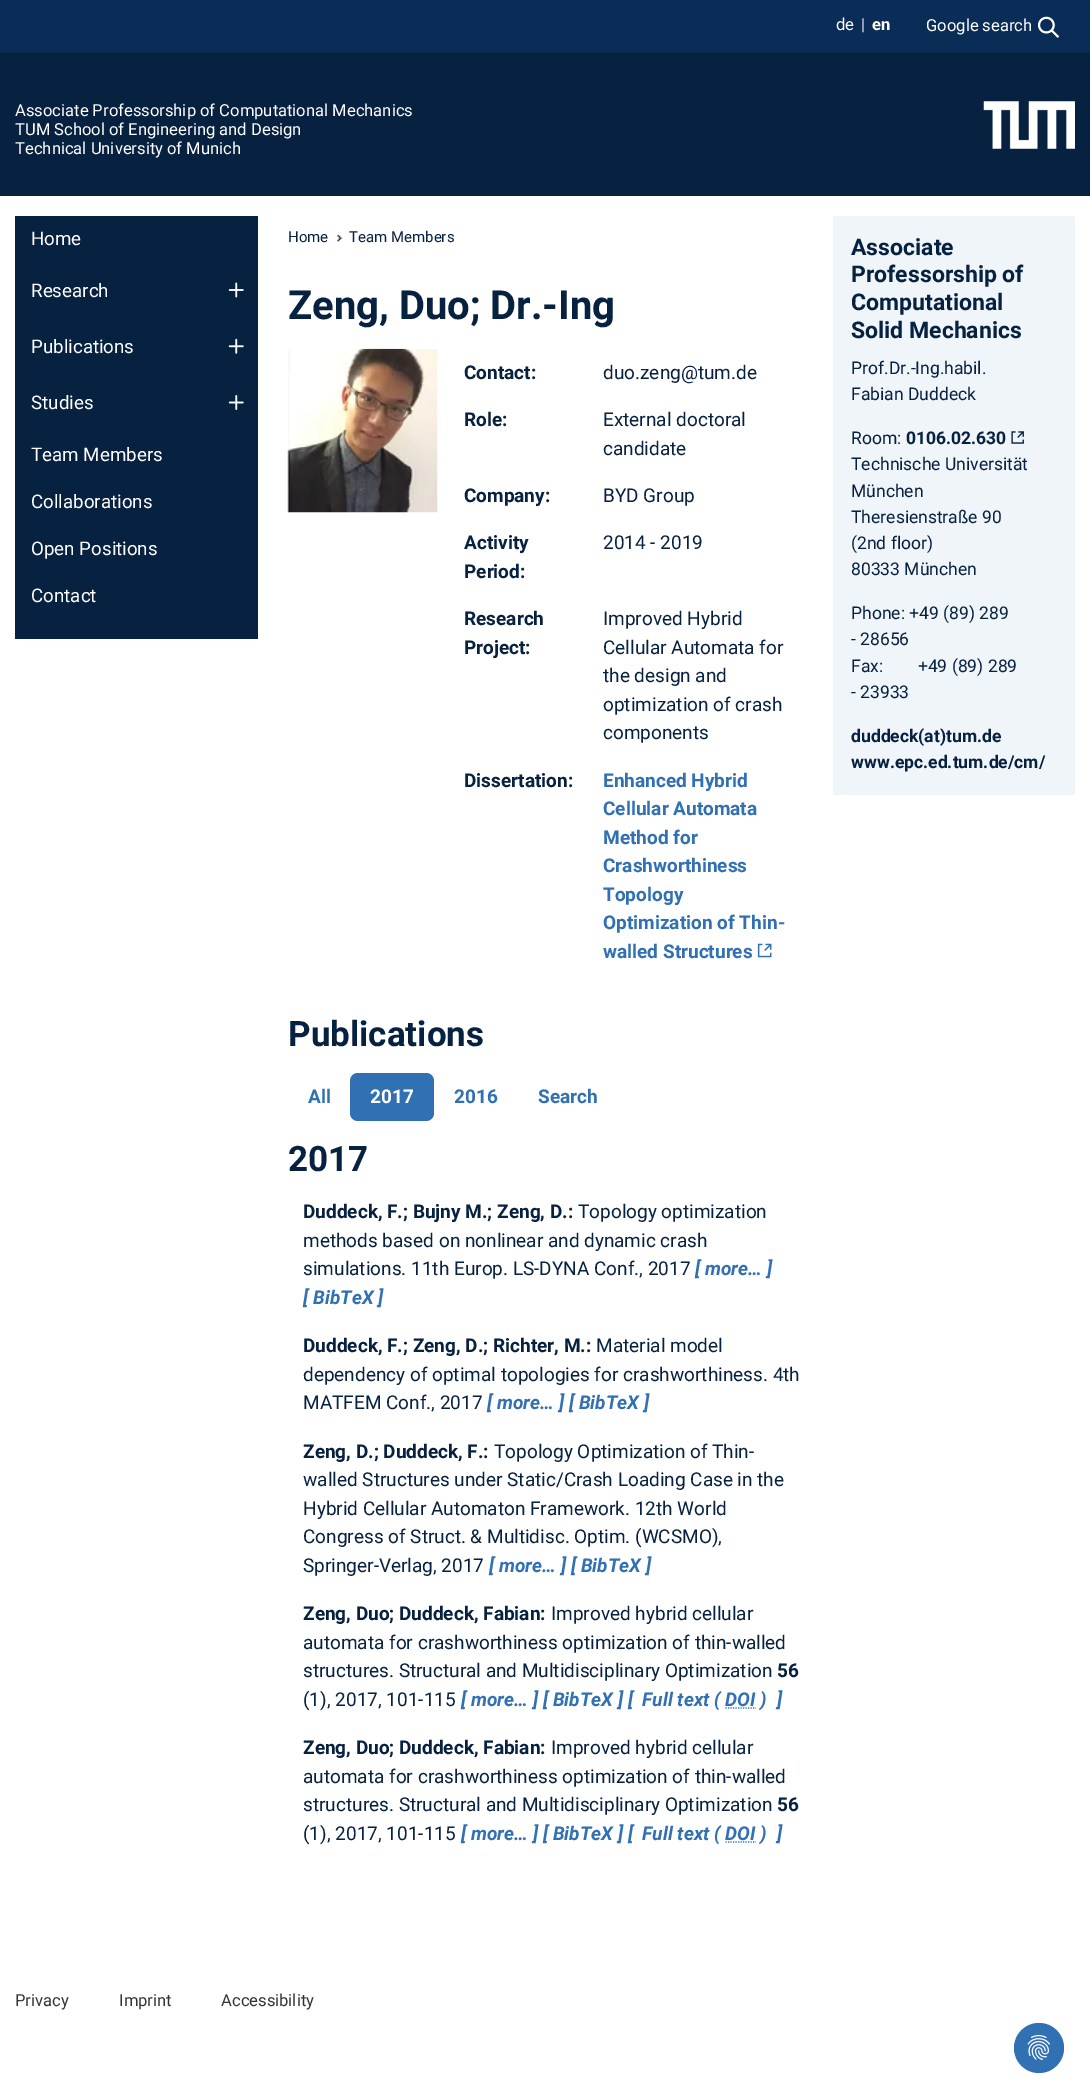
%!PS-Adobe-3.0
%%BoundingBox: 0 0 1090 2098
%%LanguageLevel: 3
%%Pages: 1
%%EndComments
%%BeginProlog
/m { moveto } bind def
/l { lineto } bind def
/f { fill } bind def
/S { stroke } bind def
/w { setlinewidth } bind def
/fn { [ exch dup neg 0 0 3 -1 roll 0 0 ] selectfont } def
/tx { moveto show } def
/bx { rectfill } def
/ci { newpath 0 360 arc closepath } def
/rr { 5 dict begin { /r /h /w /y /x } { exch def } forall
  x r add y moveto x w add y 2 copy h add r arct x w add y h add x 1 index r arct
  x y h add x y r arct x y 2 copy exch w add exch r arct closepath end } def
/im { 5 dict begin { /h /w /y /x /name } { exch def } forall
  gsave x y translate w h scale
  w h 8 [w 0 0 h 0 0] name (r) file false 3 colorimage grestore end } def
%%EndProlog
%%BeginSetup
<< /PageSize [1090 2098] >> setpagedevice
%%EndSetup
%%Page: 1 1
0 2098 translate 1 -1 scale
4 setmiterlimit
1 setgray
0 0 1090 2098 bx
0.039 0.176 0.341 setrgbcolor
0 0 1090 53 bx
/Roboto-Regular 16.6 fn
1 setgray
(de) 836 30 tx
(|) 861 30 tx
/Roboto-Bold 16.6 fn
(en) 872 30 tx
/Roboto-Regular 16.6 fn
(Google search) 926 31 tx
(image0.raw) 1038 16 21 22 im
0.027 0.129 0.251 setrgbcolor
0 53 1090 143 bx
1 setgray
(Associate Professorship of Computational Mechanics) 15 116 tx
(TUM School of Engineering and Design) 15 135 tx
(Technical University of Munich) 15 154 tx
(image1.raw) 983 101 92 48 im
0.027 0.129 0.251 setrgbcolor
15 216 243 423 bx
/Roboto-Regular 18.75 fn
1 setgray
(Home) 31 245 tx
(Research) 31 297 tx
(image2.raw) 228 282 16 16 im
(Publications) 31 353 tx
(image3.raw) 228 338 16 16 im
(Studies) 31 409 tx
(image4.raw) 228 395 16 15 im
(Team Members) 31 461 tx
(Collaborations) 31 508 tx
(Open Positions) 31 555 tx
(Contact) 31 602 tx
/Roboto-Regular 15 fn
0.027 0.129 0.251 setrgbcolor
(Home) 288 242 tx
(image5.raw) 337 234 6 8 im
(Team Members) 349 242 tx
/Roboto-Bold 40 fn
(Zeng, Duo; Dr.-Ing) 288 319 tx
(image6.raw) 287 348 151 165 im
/Roboto-Bold 19 fn
(Contact:) 464 379 tx
/Roboto-Regular 19 fn
(duo.zeng@tum.de) 603 379 tx
/Roboto-Bold 19 fn
(Role:) 464 426 tx
/Roboto-Regular 19 fn
(External doctoral) 603 426 tx
(candidate) 603 455 tx
/Roboto-Bold 19 fn
(Company:) 464 502 tx
/Roboto-Regular 19 fn
(BYD Group) 603 502 tx
/Roboto-Bold 19 fn
(Activity) 464 549 tx
(Period:) 464 578 tx
/Roboto-Regular 19 fn
(2014 - 2019) 603 549 tx
/Roboto-Bold 19 fn
(Research) 464 625 tx
(Project:) 464 654 tx
/Roboto-Regular 19 fn
(Improved Hybrid) 603 625 tx
(Cellular Automata for) 603 654 tx
(the design and) 603 682 tx
(optimization of crash) 603 711 tx
(components) 603 739 tx
/Roboto-Bold 19 fn
(Dissertation:) 464 787 tx
0.188 0.439 0.702 setrgbcolor
(Enhanced Hybrid) 603 787 tx
(Cellular Automata) 603 815 tx
(Method for) 603 844 tx
(Crashworthiness) 603 872 tx
(Topology) 603 901 tx
(Optimization of Thin-) 603 929 tx
(walled Structures) 603 958 tx
(image7.raw) 757 943 15 15 im
/Roboto-Bold 35 fn
0.027 0.129 0.251 setrgbcolor
(Publications) 288 1046 tx
/Roboto-Bold 19 fn
0.188 0.439 0.702 setrgbcolor
(All) 308 1103 tx
350 1073 84 48 8 rr f
1 setgray
(2017) 370 1103 tx
0.188 0.439 0.702 setrgbcolor
(2016) 454 1103 tx
(Search) 538 1103 tx
/Roboto-Bold 35 fn
0.027 0.129 0.251 setrgbcolor
(2017) 288 1171 tx
/Roboto-Bold 19 fn
(Duddeck, F.; Bujny M.; Zeng, D.:) 303 1218 tx
/Roboto-Regular 19 fn
(Topology optimization) 578 1218 tx
(methods based on nonlinear and dynamic crash) 303 1247 tx
(simulations. 11th Europ. LS-DYNA Conf., 2017) 303 1275 tx
/Roboto-BoldItalic 19 fn
0.188 0.439 0.702 setrgbcolor
([ more… ]) 695 1275 tx
([ BibTeX ]) 303 1304 tx
/Roboto-Bold 19 fn
0.027 0.129 0.251 setrgbcolor
(Duddeck, F.; Zeng, D.; Richter, M.:) 303 1352 tx
/Roboto-Regular 19 fn
(Material model) 596 1352 tx
(dependency of optimal topologies for crashworthiness. 4th) 303 1381 tx
(MATFEM Conf., 2017) 303 1409 tx
/Roboto-BoldItalic 19 fn
0.188 0.439 0.702 setrgbcolor
([ more… ] [ BibTeX ]) 487 1409 tx
/Roboto-Bold 19 fn
0.027 0.129 0.251 setrgbcolor
(Zeng, D.; Duddeck, F.:) 303 1458 tx
/Roboto-Regular 19 fn
(Topology Optimization of Thin-) 494 1458 tx
(walled Structures under Static/Crash Loading Case in the) 303 1486 tx
(Hybrid Cellular Automaton Framework. 12th World) 303 1515 tx
(Congress of Struct. & Multidisc. Optim. \(WCSMO\),) 303 1543 tx
(Springer-Verlag, 2017) 303 1572 tx
/Roboto-BoldItalic 19 fn
0.188 0.439 0.702 setrgbcolor
([ more… ] [ BibTeX ]) 489 1572 tx
/Roboto-Bold 19 fn
0.027 0.129 0.251 setrgbcolor
(Zeng, Duo; Duddeck, Fabian:) 303 1620 tx
/Roboto-Regular 19 fn
(Improved hybrid cellular) 551 1620 tx
(automata for crashworthiness optimization of thin-walled) 303 1649 tx
(structures. Structural and Multidisciplinary Optimization) 303 1677 tx
/Roboto-Bold 19 fn
(56) 777 1677 tx
/Roboto-Regular 19 fn
(\(1\), 2017, 101-115) 303 1706 tx
/Roboto-BoldItalic 19 fn
0.188 0.439 0.702 setrgbcolor
([ more… ] [ BibTeX ] [) 461 1706 tx
(Full text \( DOI \)) 642 1706 tx
(]) 777 1706 tx
1.2 w
[1.25 1.25] 0 setdash
725.5 1708 m 756 1708 l S
/Roboto-Bold 19 fn
0.027 0.129 0.251 setrgbcolor
(Zeng, Duo; Duddeck, Fabian:) 303 1754 tx
/Roboto-Regular 19 fn
(Improved hybrid cellular) 551 1754 tx
(automata for crashworthiness optimization of thin-walled) 303 1783 tx
(structures. Structural and Multidisciplinary Optimization) 303 1811 tx
/Roboto-Bold 19 fn
(56) 777 1811 tx
/Roboto-Regular 19 fn
(\(1\), 2017, 101-115) 303 1840 tx
/Roboto-BoldItalic 19 fn
0.188 0.439 0.702 setrgbcolor
([ more… ] [ BibTeX ] [) 461 1840 tx
(Full text \( DOI \)) 642 1840 tx
(]) 777 1840 tx
725.5 1842 m 756 1842 l S
0.941 0.961 0.98 setrgbcolor
833 216 242 579 bx
/Roboto-Bold 23 fn
0.027 0.129 0.251 setrgbcolor
(Associate) 851 255 tx
(Professorship of) 851 282 tx
(Computational) 851 310 tx
(Solid Mechanics) 851 338 tx
/Roboto-Regular 17.5 fn
(Prof.Dr.-Ing.habil.) 851 374 tx
(Fabian Duddeck) 851 400 tx
(Room:) 851 444 tx
/Roboto-Bold 17.5 fn
(0106.02.630) 906 444 tx
(image8.raw) 1011 431 13 13 im
/Roboto-Regular 17.5 fn
(Technische Universität) 851 470 tx
(München) 851 497 tx
(Theresienstraße 90) 851 523 tx
(\(2nd floor\)) 851 549 tx
(80333 München) 851 575 tx
(Phone: +49 \(89\) 289) 851 619 tx
(- 28656) 851 645 tx
(Fax:        +49 \(89\) 289) 851 672 tx
(- 23933) 851 698 tx
/Roboto-Bold 17.5 fn
(duddeck\(at\)tum.de) 851 742 tx
(www.epc.ed.tum.de/cm/) 851 768 tx
/Roboto-Regular 16.6 fn
0.2 setgray
(Privacy) 15 2006 tx
(Imprint) 119 2006 tx
(Accessibility) 221 2006 tx
0.188 0.439 0.702 setrgbcolor
1039 2048 25 ci f
(image9.raw) 1027 2035 23 25 im
showpage
%%EOF
